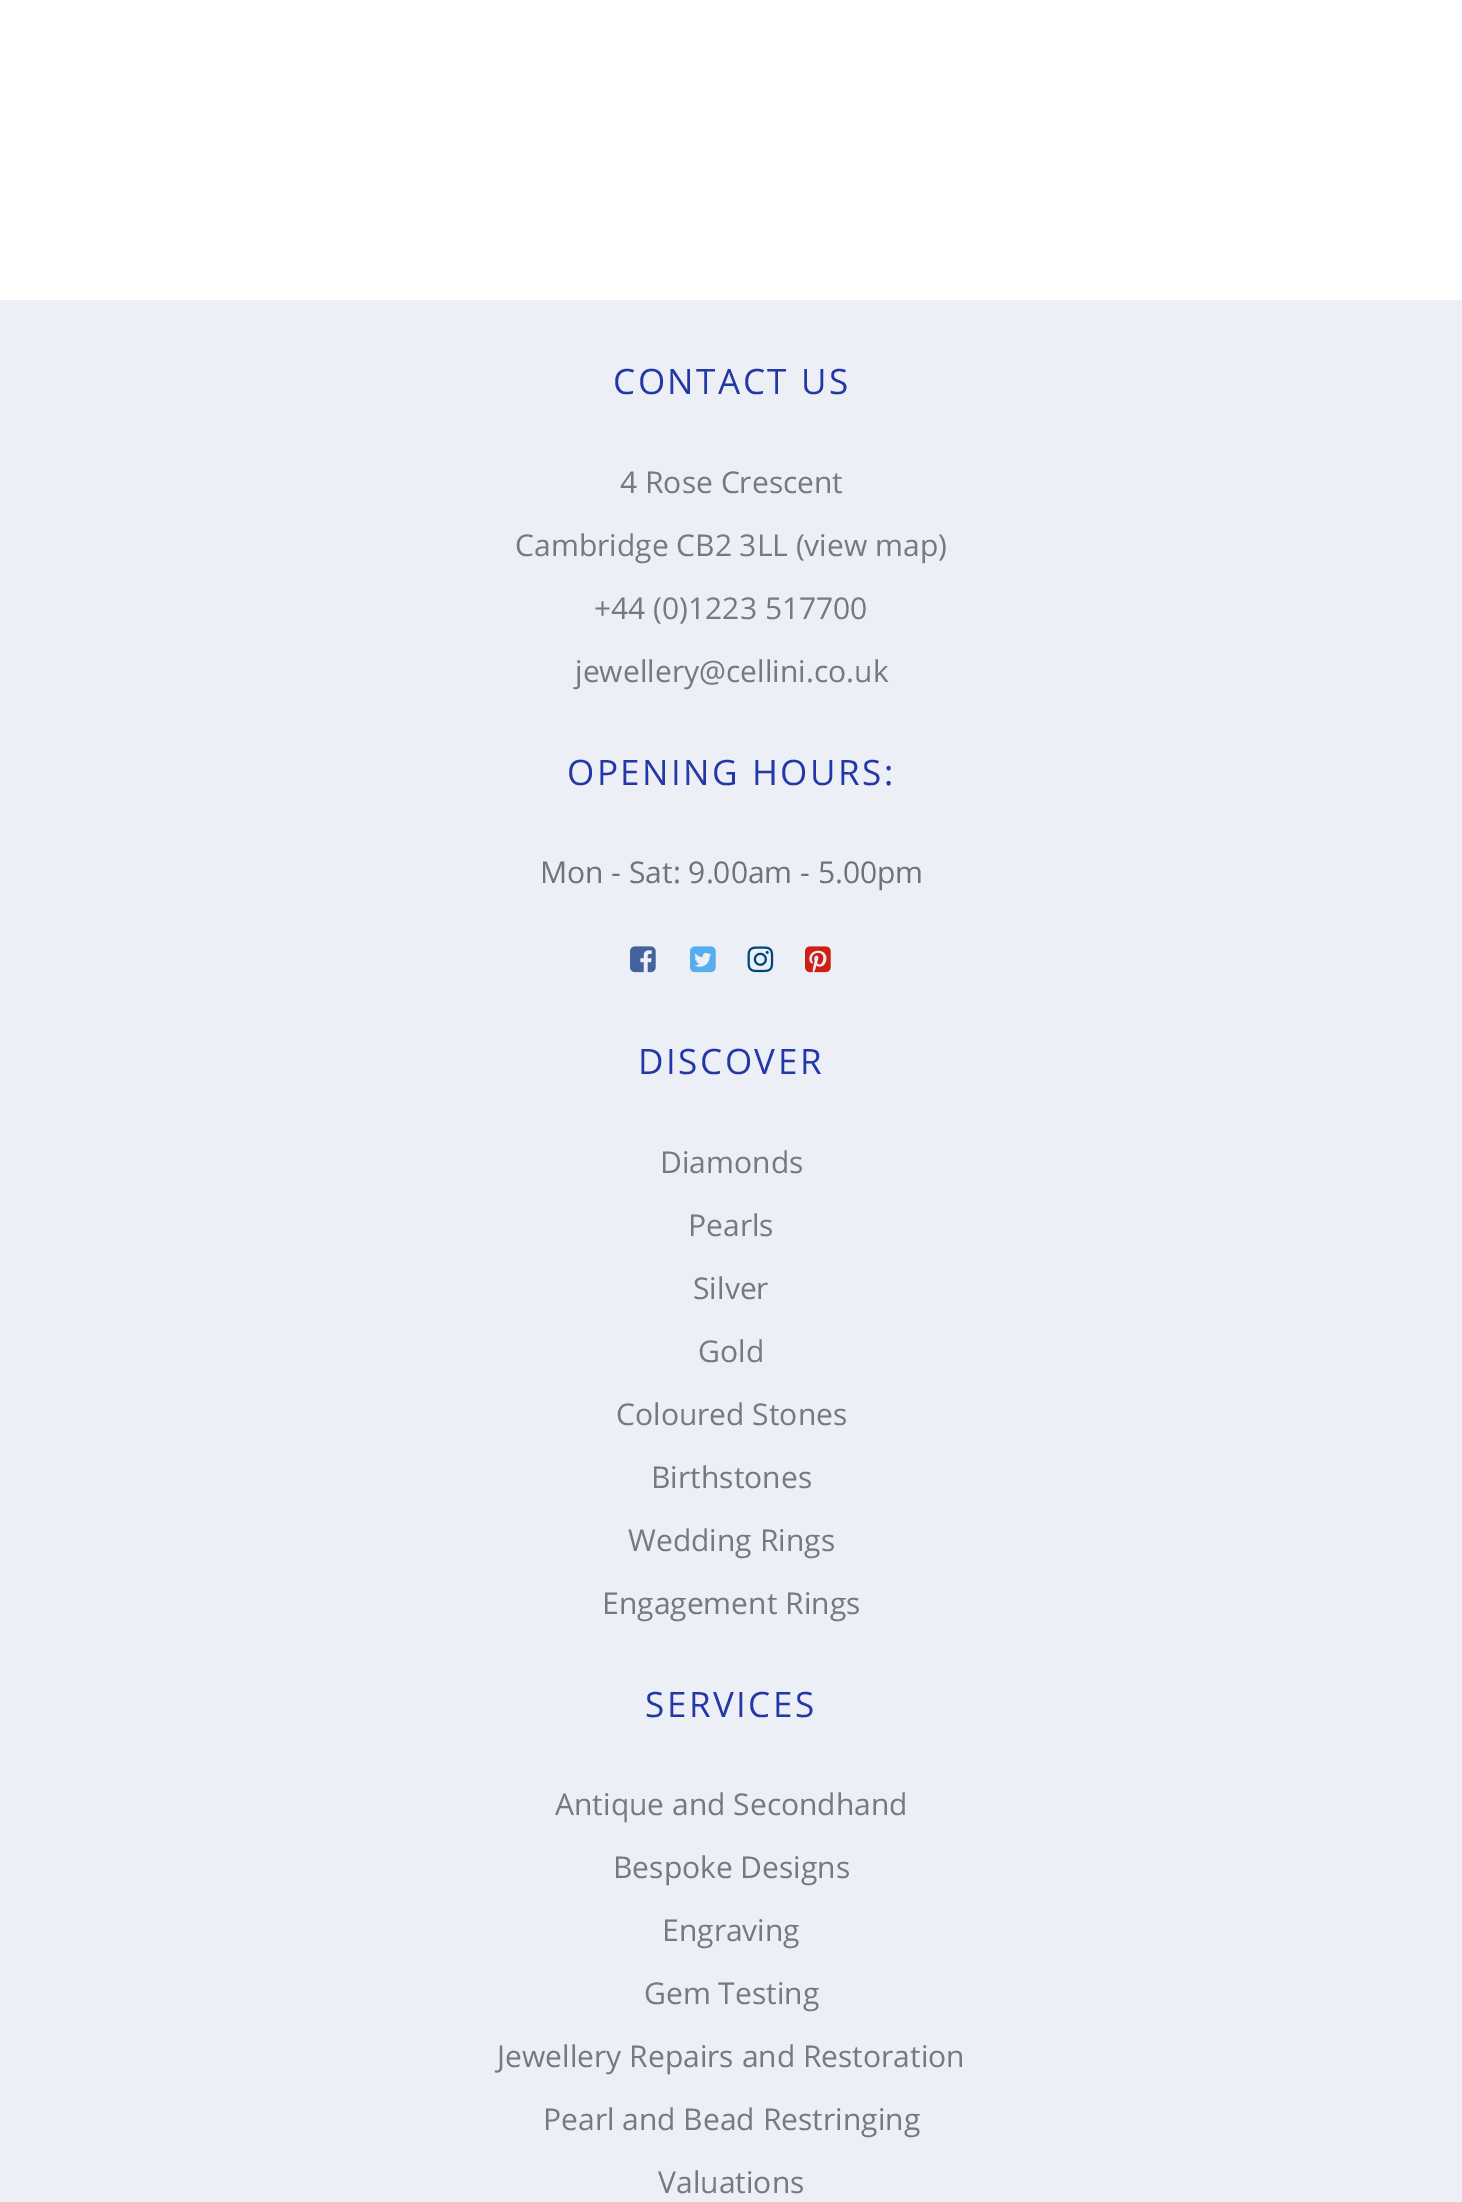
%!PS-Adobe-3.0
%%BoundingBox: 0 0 1462 2202
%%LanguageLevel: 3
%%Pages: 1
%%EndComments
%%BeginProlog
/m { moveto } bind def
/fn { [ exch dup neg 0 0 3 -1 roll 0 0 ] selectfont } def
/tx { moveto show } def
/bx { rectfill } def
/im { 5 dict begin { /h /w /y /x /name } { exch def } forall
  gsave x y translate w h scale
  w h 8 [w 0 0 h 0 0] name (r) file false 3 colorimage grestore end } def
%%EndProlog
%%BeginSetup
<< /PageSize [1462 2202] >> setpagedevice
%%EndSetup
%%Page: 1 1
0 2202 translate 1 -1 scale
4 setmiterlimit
1 setgray
0 0 1462 2202 bx
0.929 0.937 0.965 setrgbcolor
0 300 1462 1902 bx
/OpenSans-Regular 35 fn
0.141 0.216 0.651 setrgbcolor
613 394 m 2.5 0 (CONTACT US) ashow
/OpenSans-Regular 30 fn
0.455 0.478 0.506 setrgbcolor
(4 Rose Crescent) 620 493 tx
(Cambridge CB2 3LL \(view map\)) 515 556 tx
(+44 \(0\)1223 517700) 594 619 tx
(jewellery@cellini.co.uk) 575 682 tx
/OpenSans-Regular 35 fn
0.141 0.216 0.651 setrgbcolor
567 785 m 2.5 0 (OPENING HOURS:) ashow
/OpenSans-Regular 30 fn
0.427 0.451 0.494 setrgbcolor
(Mon - Sat: 9.00am - 5.00pm) 540 883 tx
(image0.raw) 630 946 26 27 im
(image1.raw) 690 946 26 27 im
(image2.raw) 747 946 27 27 im
(image3.raw) 805 946 26 27 im
/OpenSans-Regular 35 fn
0.141 0.216 0.651 setrgbcolor
638 1074 m 2.5 0 (DISCOVER) ashow
/OpenSans-Regular 30 fn
0.455 0.478 0.506 setrgbcolor
(Diamonds) 660 1173 tx
(Pearls) 688 1236 tx
(Silver) 693 1299 tx
(Gold) 698 1362 tx
(Coloured Stones) 616 1425 tx
(Birthstones) 651 1488 tx
(Wedding Rings) 628 1551 tx
(Engagement Rings) 602 1614 tx
/OpenSans-Regular 35 fn
0.141 0.216 0.651 setrgbcolor
645 1717 m 2.5 0 (SERVICES) ashow
/OpenSans-Regular 30 fn
0.455 0.478 0.506 setrgbcolor
(Antique and Secondhand) 555 1815 tx
(Bespoke Designs) 613 1878 tx
(Engraving) 662 1941 tx
(Gem Testing) 644 2004 tx
(Jewellery Repairs and Restoration) 497 2067 tx
(Pearl and Bead Restringing) 543 2130 tx
(Valuations) 658 2193 tx
showpage
%%EOF
